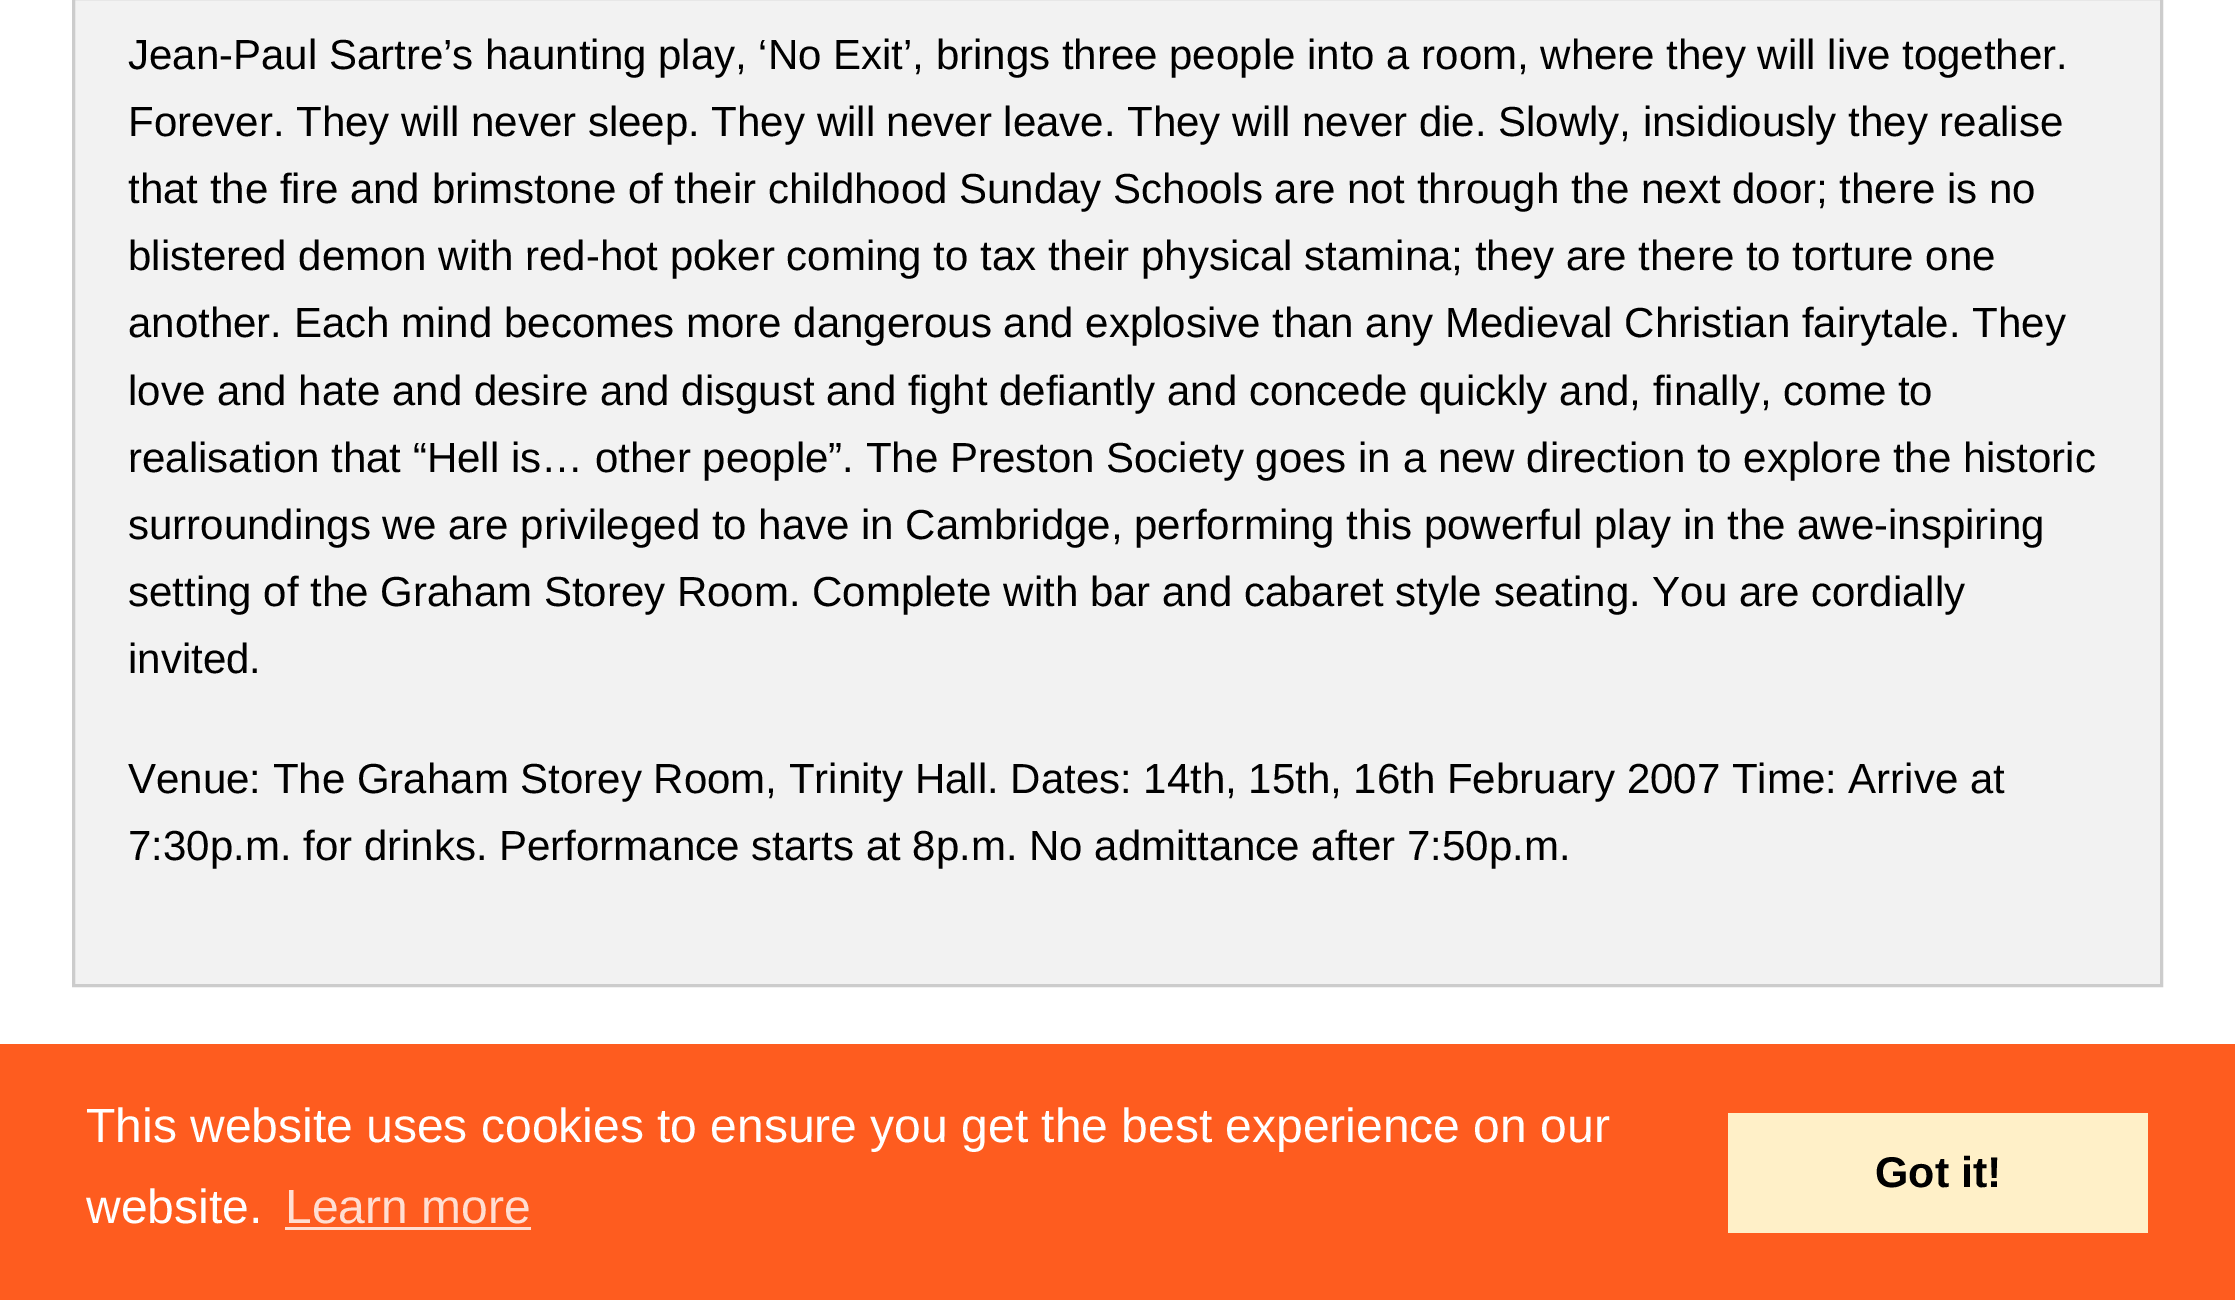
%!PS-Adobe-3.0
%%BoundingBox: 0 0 2235 1300
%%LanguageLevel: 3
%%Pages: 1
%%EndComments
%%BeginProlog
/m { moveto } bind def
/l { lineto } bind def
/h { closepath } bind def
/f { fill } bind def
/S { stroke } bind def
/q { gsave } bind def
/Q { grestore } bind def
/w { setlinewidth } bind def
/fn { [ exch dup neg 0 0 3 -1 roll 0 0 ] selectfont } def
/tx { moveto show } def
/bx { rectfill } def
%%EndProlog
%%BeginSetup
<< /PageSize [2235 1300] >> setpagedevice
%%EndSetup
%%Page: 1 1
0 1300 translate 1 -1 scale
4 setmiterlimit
1 setgray
0 0 2235 1300 bx
0.949 setgray
73.5 -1.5 m 2161.5 -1.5 l 2161.5 985.5 l 73.5 985.5 l h q f Q
0.8 setgray
3 w
S
/LiberationSans-Regular 42 fn
0 setgray
(Jean-Paul Sartre’s haunting play, ‘No Exit’, brings three people into a room, where they will live together.) 128 69 tx
(Forever. They will never sleep. They will never leave. They will never die. Slowly, insidiously they realise) 128 136 tx
(that the fire and brimstone of their childhood Sunday Schools are not through the next door; there is no) 128 203 tx
(blistered demon with red-hot poker coming to tax their physical stamina; they are there to torture one) 128 270 tx
(another. Each mind becomes more dangerous and explosive than any Medieval Christian fairytale. They) 128 337 tx
(love and hate and desire and disgust and fight defiantly and concede quickly and, finally, come to) 128 405 tx
(realisation that “Hell is… other people”. The Preston Society goes in a new direction to explore the historic) 128 472 tx
(surroundings we are privileged to have in Cambridge, performing this powerful play in the awe-inspiring) 128 539 tx
(setting of the Graham Storey Room. Complete with bar and cabaret style seating. You are cordially) 128 606 tx
(invited.) 128 673 tx
(Venue: The Graham Storey Room, Trinity Hall. Dates: 14th, 15th, 16th February 2007 Time: Arrive at) 128 793 tx
(7:30p.m. for drinks. Performance starts at 8p.m. No admittance after 7:50p.m.) 128 860 tx
0.996 0.361 0.122 setrgbcolor
0 1044 2235 256 bx
/LiberationSans-Regular 48 fn
1 setgray
(This website uses cookies to ensure you get the best experience on our) 86 1142 tx
(website.) 86 1223 tx
1 0.871 0.824 setrgbcolor
(Learn more) 285 1223 tx
285 1227 246 3 bx
1 0.941 0.784 setrgbcolor
1728 1113 420 120 bx
/LiberationSans-Bold 43 fn
0 setgray
(Got it!) 1875 1187 tx
showpage
%%EOF
